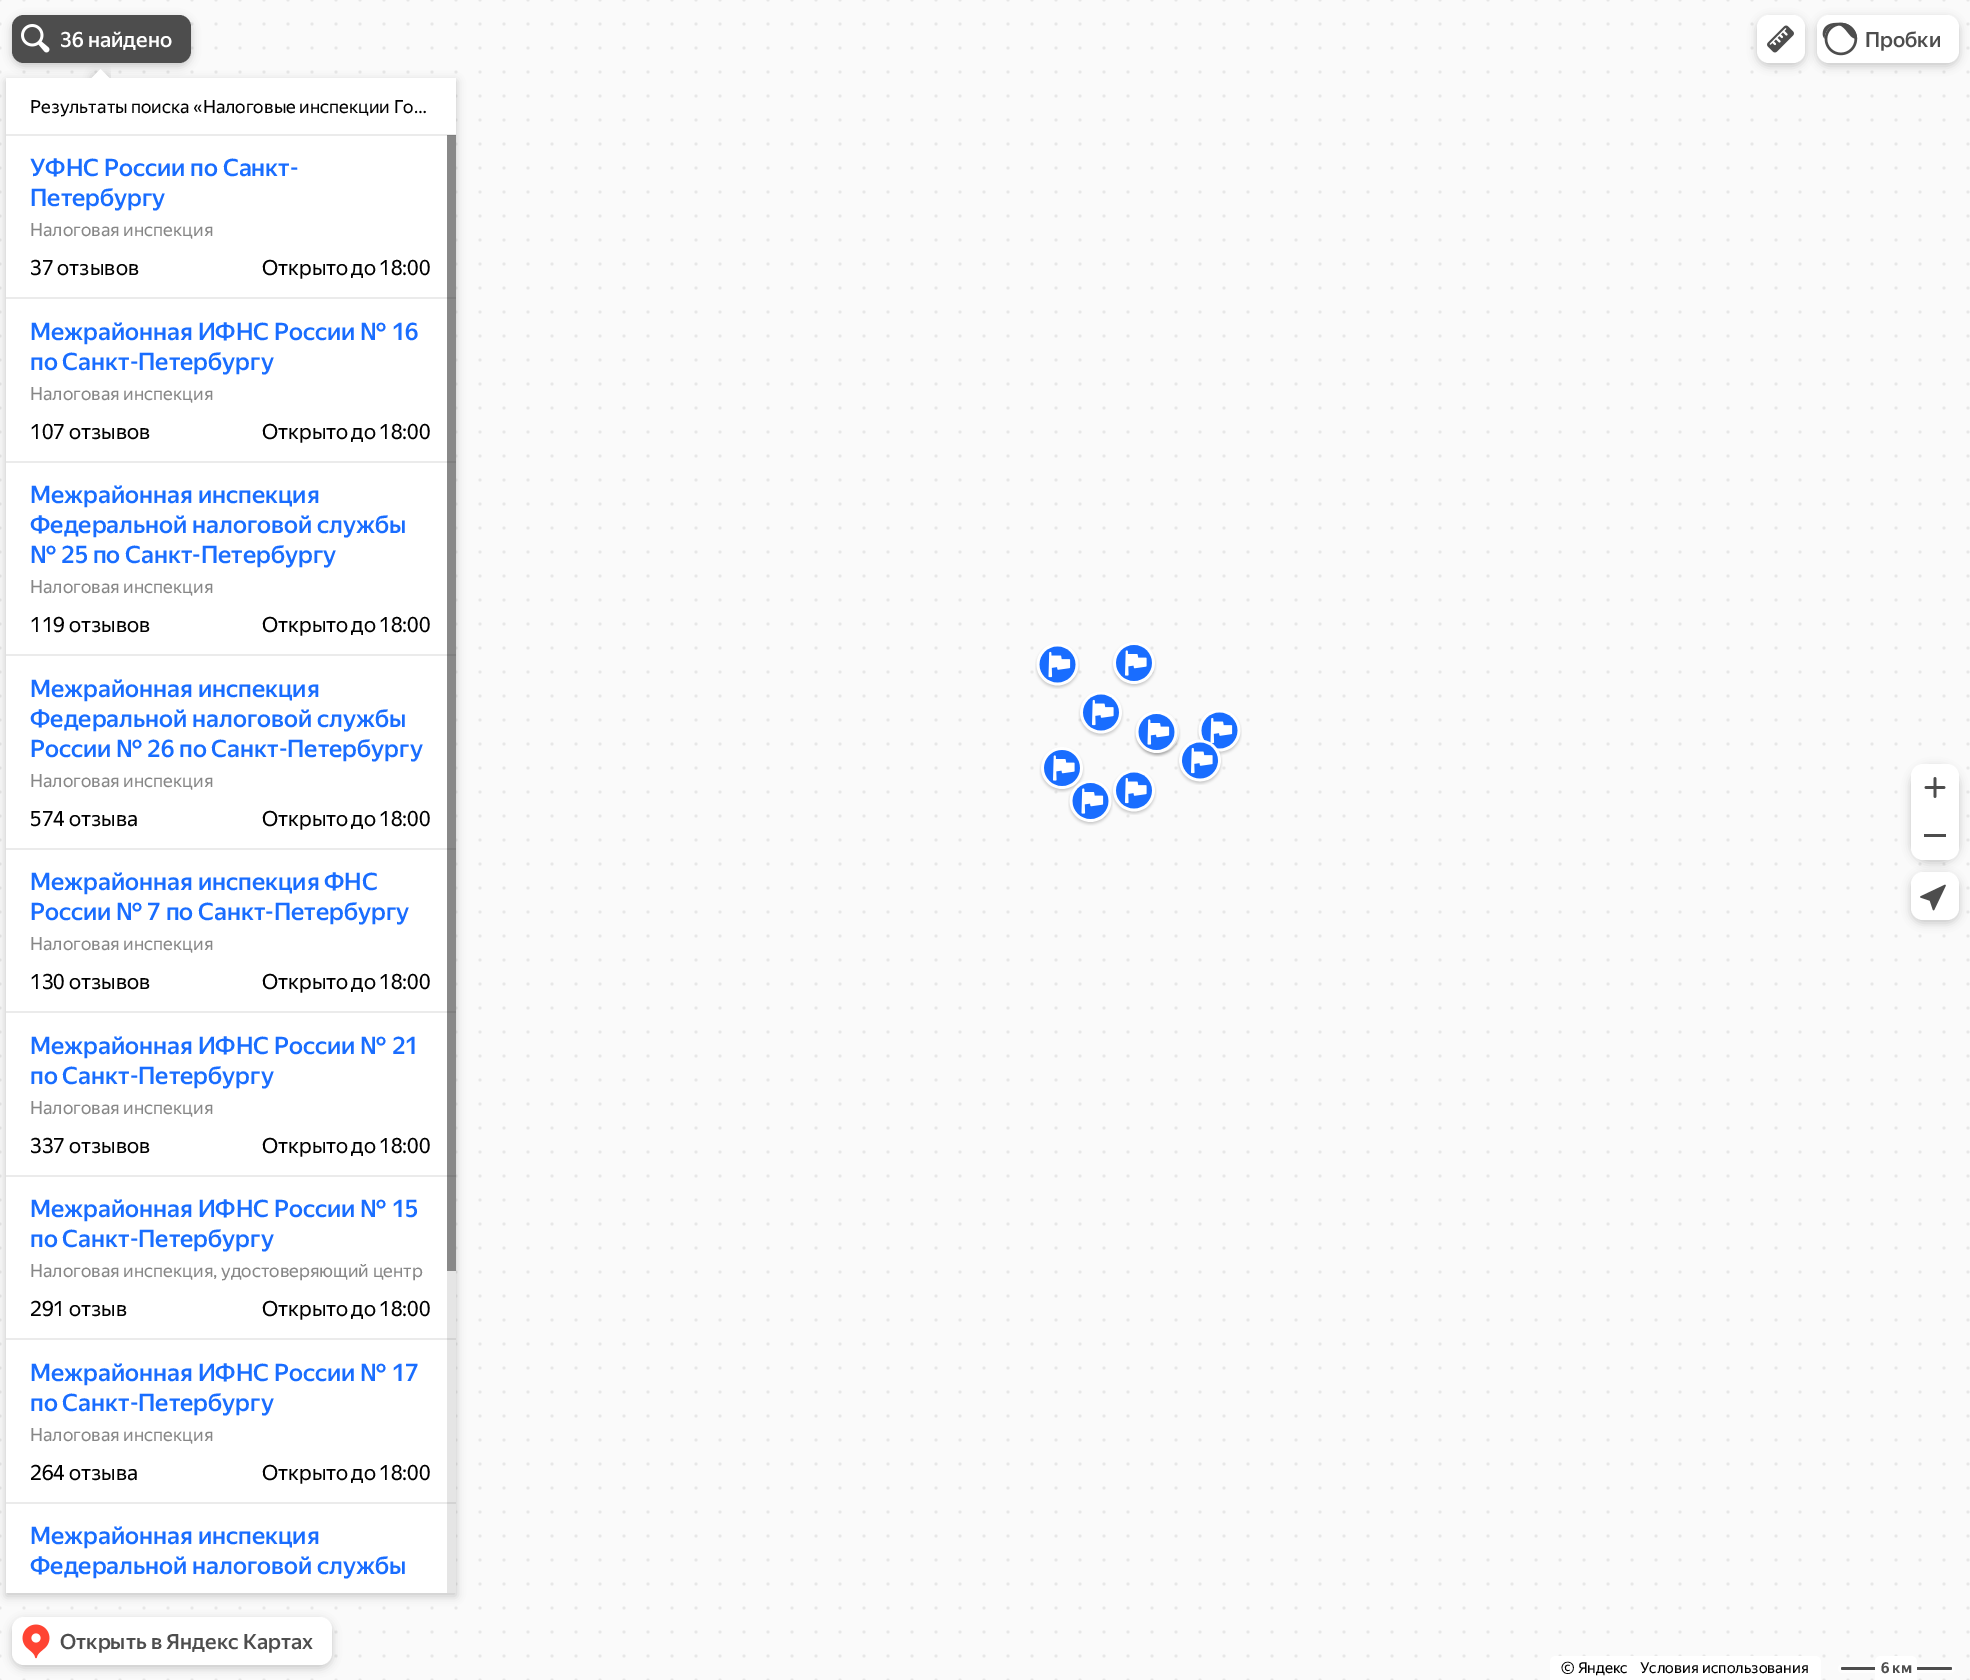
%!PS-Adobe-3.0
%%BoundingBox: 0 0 1970 1680
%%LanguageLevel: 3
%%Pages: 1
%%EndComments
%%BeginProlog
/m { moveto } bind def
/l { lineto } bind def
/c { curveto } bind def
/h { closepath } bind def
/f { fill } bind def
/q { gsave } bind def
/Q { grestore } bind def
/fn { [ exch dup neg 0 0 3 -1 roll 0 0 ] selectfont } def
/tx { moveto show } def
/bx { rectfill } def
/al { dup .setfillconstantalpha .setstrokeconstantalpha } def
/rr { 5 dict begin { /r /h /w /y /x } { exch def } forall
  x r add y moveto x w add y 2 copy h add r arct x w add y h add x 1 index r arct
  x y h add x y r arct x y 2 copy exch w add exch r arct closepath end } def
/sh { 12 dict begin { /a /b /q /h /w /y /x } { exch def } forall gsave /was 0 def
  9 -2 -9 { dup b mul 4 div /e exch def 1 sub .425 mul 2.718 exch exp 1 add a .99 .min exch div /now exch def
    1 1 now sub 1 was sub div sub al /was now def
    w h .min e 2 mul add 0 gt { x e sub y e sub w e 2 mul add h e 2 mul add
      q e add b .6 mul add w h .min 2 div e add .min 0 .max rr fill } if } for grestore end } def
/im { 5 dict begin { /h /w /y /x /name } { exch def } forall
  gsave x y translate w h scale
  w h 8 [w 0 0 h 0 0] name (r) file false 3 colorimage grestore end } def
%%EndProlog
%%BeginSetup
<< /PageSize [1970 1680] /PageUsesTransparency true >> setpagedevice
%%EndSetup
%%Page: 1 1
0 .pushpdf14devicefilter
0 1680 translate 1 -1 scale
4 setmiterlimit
1 setgray
0 0 1970 1680 bx
(image0.raw) 0 0 1970 1680 im
0 setgray
12 18 179 48 12 4.5 0.2 sh
0.302 setgray
12 15 179 48 12 rr f
(image1.raw) 21 24 29 29 im
/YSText-Medium 21 fn
1 setgray
(36 найдено) 60 47 tx
0 setgray
1757 18 48 48 12 4.5 0.2 sh
1 setgray
1757 15 48 48 12 rr f
(image2.raw) 1767 25 27 28 im
0 setgray
1817 18 142 48 12 4.5 0.2 sh
1 setgray
1817 15 142 48 12 rr f
(image3.raw) 1822 22 36 34 im
0.302 setgray
(Пробки) 1865 47 tx
0 setgray
1911 767 48 96 18 4.5 0.2 sh
1 setgray
1923 764 m 1947 764 l 1953.5 764 1959 769.5 1959 776 c 1959 812 l 1911 812 l 1911 776 l 1911 769.5 1916.5 764 1923 764 c h f
(image4.raw) 1924 777 22 21 im
1911 812 m 1959 812 l 1959 848 l 1959 854.5 1953.5 860 1947 860 c 1923 860 l 1916.5 860 1911 854.5 1911 848 c h f
0.302 setgray
1924 834 22 3 bx
0 setgray
1911 875 48 48 12 4.5 0.2 sh
1 setgray
1911 872 48 48 12 rr f
(image5.raw) 1920 884 26 27 im
0 setgray
12 1620 320 48 12 4.5 0.2 sh
1 setgray
12 1617 320 48 12 rr f
(image6.raw) 22 1624 28 35 im
0.302 setgray
(Открыть в Яндекс Картах) 60 1649 tx
1 setgray
1556 1656 m 1815 1656 l 1818.5 1656 1821 1658.5 1821 1662 c 1821 1680 l 1550 1680 l 1550 1662 l 1550 1658.5 1552.5 1656 1556 1656 c h f
/YSText-Regular 15 fn
0 setgray
(© Яндекс) 1561 1673 tx
(Условия использования) 1640 1673 tx
0.992 setgray
1838 1664 117 9 4.5 rr f
0.302 setgray
1841 1667 111 3 1.5 rr f
1 setgray
1881 1656 m 1911 1656 l 1914.5 1656 1917 1658.5 1917 1662 c 1917 1680 l 1875 1680 l 1875 1662 l 1875 1658.5 1877.5 1656 1881 1656 c h f
/YSText-Bold 15 fn
0.302 setgray
(6 км) 1881 1673 tx
(image7.raw) 1035 644 45 45 im
(image8.raw) 1048 651 23 27 im
(image9.raw) 1111 642 46 46 im
(image10.raw) 1125 650 22 26 im
(image11.raw) 1078 692 46 45 im
(image12.raw) 1092 699 22 27 im
(image14.raw) 1197 710 45 45 im
(image8.raw) 1210 717 23 27 im
(image21.raw) 1177 739 46 46 im
(image13.raw) 1135 711 46 46 im
(image15.raw) 1134 712 45 45 im
(image16.raw) 1147 719 23 26 im
(image17.raw) 1039 747 46 46 im
(image18.raw) 1053 755 22 26 im
(image20.raw) 1111 770 46 45 im
(image19.raw) 1068 780 45 46 im
(image16.raw) 1081 788 23 26 im
(image12.raw) 1125 777 22 27 im
(image22.raw) 1191 747 22 27 im
0 setgray
6 81 450 1515 0 4.5 0.2 sh
1 setgray
6 78 450 1515 bx
q
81 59 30 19 rectclip
0 setgray
93 75 15 15 0 4.5 0.2 sh
Q
q
81 59 30 19 rectclip
100.5 69 m 111 79.5 l 100.5 90 l 90 79.5 l h f
Q
0.922 setgray
6 134 450 2 bx
/YSText-Regular 18 fn
0 setgray
(Результаты поиска «Налоговые инспекции Го…) 30 113 tx
0.922 setgray
6 297 450 2 bx
/YSText-Medium 24 fn
0.098 0.427 1 setrgbcolor
(УФНС России по Санкт-) 30 176 tx
(Петербургу) 30 206 tx
/YSText-Regular 18 fn
0.529 setgray
(Налоговая инспекция) 30 236 tx
/YSText-Regular 21 fn
0 setgray
(37 отзывов) 30 275 tx
262 275 m -1 0 32 (Открыто до 18:00) widthshow
0.922 setgray
6 461 450 2 bx
/YSText-Medium 24 fn
0.098 0.427 1 setrgbcolor
(Межрайонная ИФНС России № 16) 30 340 tx
(по Санкт-Петербургу) 30 370 tx
/YSText-Regular 18 fn
0.529 setgray
(Налоговая инспекция) 30 400 tx
/YSText-Regular 21 fn
0 setgray
(107 отзывов) 30 439 tx
262 439 m -1 0 32 (Открыто до 18:00) widthshow
0.922 setgray
6 654 450 2 bx
/YSText-Medium 24 fn
0.098 0.427 1 setrgbcolor
(Межрайонная инспекция) 30 503 tx
(Федеральной налоговой службы) 30 533 tx
(№ 25 по Санкт-Петербургу) 30 563 tx
/YSText-Regular 18 fn
0.529 setgray
(Налоговая инспекция) 30 593 tx
/YSText-Regular 21 fn
0 setgray
(119 отзывов) 30 632 tx
262 632 m -1 0 32 (Открыто до 18:00) widthshow
0.922 setgray
6 848 450 2 bx
/YSText-Medium 24 fn
0.098 0.427 1 setrgbcolor
(Межрайонная инспекция) 30 697 tx
(Федеральной налоговой службы) 30 727 tx
(России № 26 по Санкт-Петербургу) 30 757 tx
/YSText-Regular 18 fn
0.529 setgray
(Налоговая инспекция) 30 787 tx
/YSText-Regular 21 fn
0 setgray
(574 отзыва) 30 826 tx
262 826 m -1 0 32 (Открыто до 18:00) widthshow
0.922 setgray
6 1011 450 2 bx
/YSText-Medium 24 fn
0.098 0.427 1 setrgbcolor
(Межрайонная инспекция ФНС) 30 890 tx
(России № 7 по Санкт-Петербургу) 30 920 tx
/YSText-Regular 18 fn
0.529 setgray
(Налоговая инспекция) 30 950 tx
/YSText-Regular 21 fn
0 setgray
(130 отзывов) 30 989 tx
262 989 m -1 0 32 (Открыто до 18:00) widthshow
0.922 setgray
6 1175 450 2 bx
/YSText-Medium 24 fn
0.098 0.427 1 setrgbcolor
(Межрайонная ИФНС России № 21) 30 1054 tx
(по Санкт-Петербургу) 30 1084 tx
/YSText-Regular 18 fn
0.529 setgray
(Налоговая инспекция) 30 1114 tx
/YSText-Regular 21 fn
0 setgray
(337 отзывов) 30 1153 tx
262 1153 m -1 0 32 (Открыто до 18:00) widthshow
0.922 setgray
6 1338 450 2 bx
/YSText-Medium 24 fn
0.098 0.427 1 setrgbcolor
(Межрайонная ИФНС России № 15) 30 1217 tx
(по Санкт-Петербургу) 30 1247 tx
/YSText-Regular 18 fn
0.529 setgray
(Налоговая инспекция, удостоверяющий центр) 30 1277 tx
/YSText-Regular 21 fn
0 setgray
(291 отзыв) 30 1316 tx
262 1316 m -1 0 32 (Открыто до 18:00) widthshow
0.922 setgray
6 1502 450 2 bx
/YSText-Medium 24 fn
0.098 0.427 1 setrgbcolor
(Межрайонная ИФНС России № 17) 30 1381 tx
(по Санкт-Петербургу) 30 1411 tx
/YSText-Regular 18 fn
0.529 setgray
(Налоговая инспекция) 30 1441 tx
/YSText-Regular 21 fn
0 setgray
(264 отзыва) 30 1480 tx
262 1480 m -1 0 32 (Открыто до 18:00) widthshow
/YSText-Medium 24 fn
0.098 0.427 1 setrgbcolor
(Межрайонная инспекция) 30 1544 tx
(Федеральной налоговой службы) 30 1574 tx
0.1 al
0 setgray
447 135 9 1458 bx
0.4 al
447 135 9 1136 bx
.poppdf14devicefilter showpage
%%EOF
